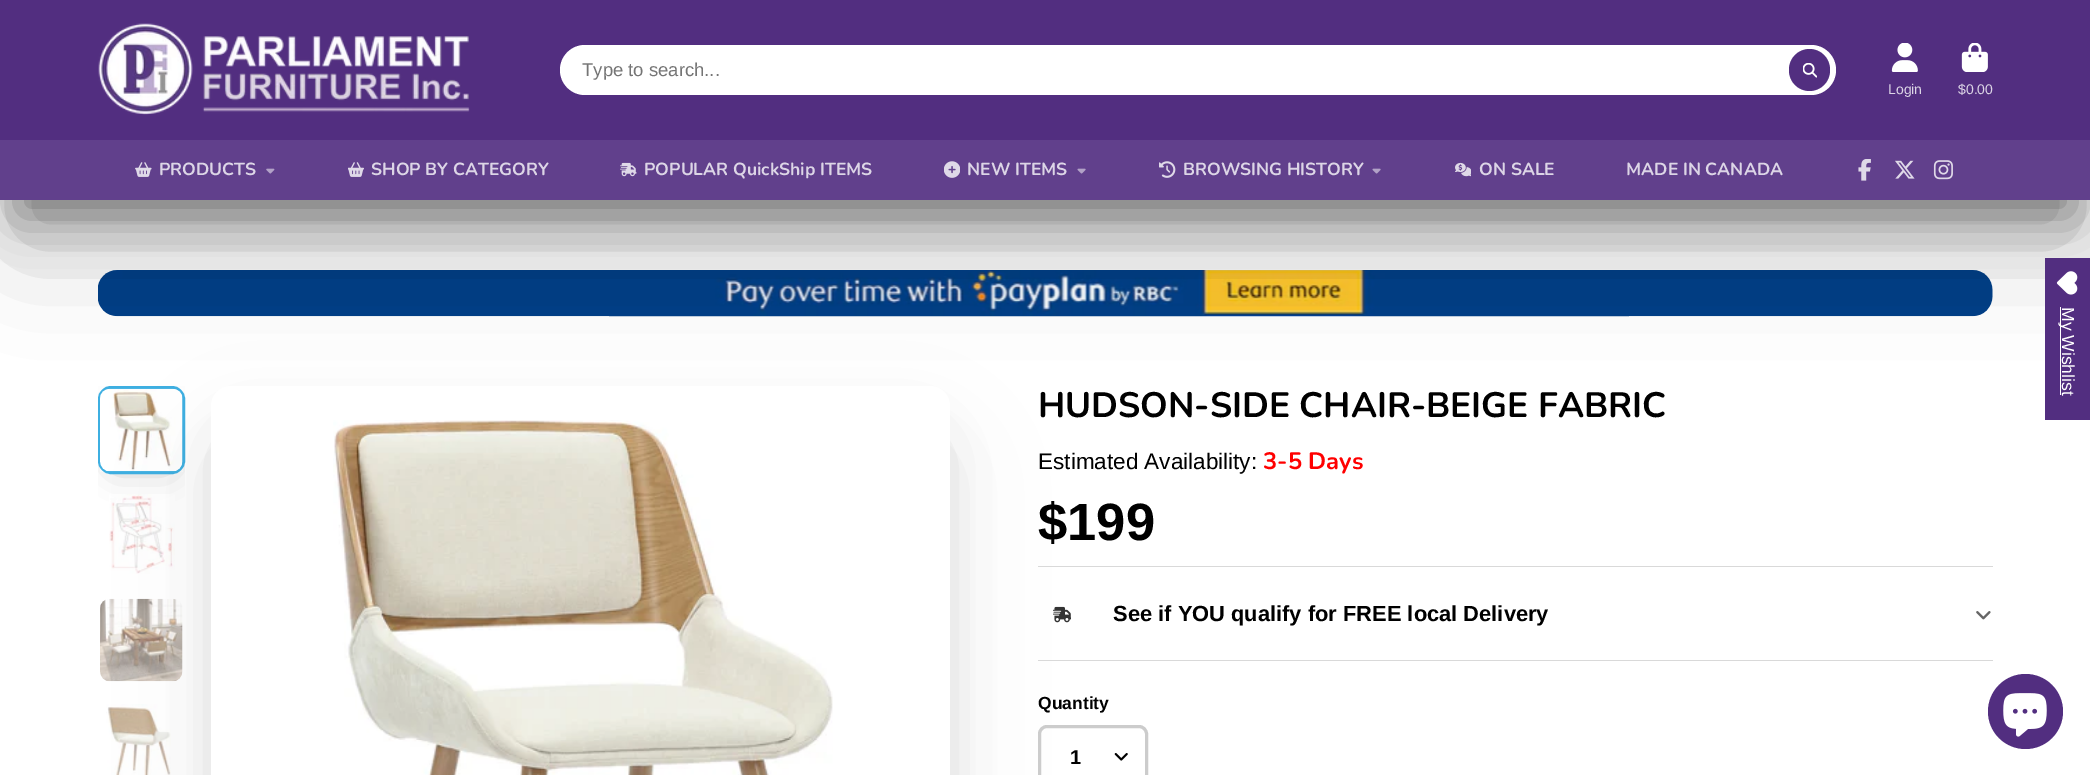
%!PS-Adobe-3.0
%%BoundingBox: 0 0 2090 775
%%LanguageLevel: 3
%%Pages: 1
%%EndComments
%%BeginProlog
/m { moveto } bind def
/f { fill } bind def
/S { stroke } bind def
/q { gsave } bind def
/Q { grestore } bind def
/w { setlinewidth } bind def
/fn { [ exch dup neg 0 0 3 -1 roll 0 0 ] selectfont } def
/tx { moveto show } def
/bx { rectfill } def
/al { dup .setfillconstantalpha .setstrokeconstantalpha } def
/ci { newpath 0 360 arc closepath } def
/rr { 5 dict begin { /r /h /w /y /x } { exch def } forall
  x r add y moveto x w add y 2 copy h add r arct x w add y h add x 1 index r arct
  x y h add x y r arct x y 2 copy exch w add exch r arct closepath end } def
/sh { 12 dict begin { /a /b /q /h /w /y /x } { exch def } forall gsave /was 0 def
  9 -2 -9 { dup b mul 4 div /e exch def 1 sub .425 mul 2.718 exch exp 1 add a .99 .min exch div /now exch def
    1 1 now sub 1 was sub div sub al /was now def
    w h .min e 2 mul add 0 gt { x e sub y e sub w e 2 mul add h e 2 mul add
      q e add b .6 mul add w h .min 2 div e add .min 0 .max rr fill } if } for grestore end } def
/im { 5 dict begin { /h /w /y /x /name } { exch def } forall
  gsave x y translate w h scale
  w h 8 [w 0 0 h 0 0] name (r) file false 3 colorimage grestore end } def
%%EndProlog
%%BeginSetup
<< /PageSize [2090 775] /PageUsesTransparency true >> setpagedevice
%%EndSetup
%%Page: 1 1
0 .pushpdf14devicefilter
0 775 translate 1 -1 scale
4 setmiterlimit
1 setgray
0 0 2090 775 bx
q
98 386 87 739 rectclip
0 setgray
115 413 53 52 0 17.5 0.3 sh
Q
0.243 0.686 0.882 setrgbcolor
3 w
99.5 387.5 84 85 11.5 rr S
(image17.raw) 100 388 83 84 im
(image18.raw) 109 494 66 80 im
(image19.raw) 100 598 83 84 im
(image20.raw) 106 704 65 71 im
0 setgray
234 463 695 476 0 54.5 0.1 sh
(image15.raw) 98 270 1895 47 im
18 50 2055 165 0 24 0.4 sh
244 453 674 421 0 33 0.3 sh
1 setgray
211 386 739 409 20 rr f
0 setgray
18 73 2055 165 0 54.5 0.3 sh
0.322 0.18 0.502 setrgbcolor
0 0 2090 140 bx
(image0.raw) 98 23 372 92 im
1 setgray
560 45 1276 50 25 rr f
/LiberationSans-Regular 18.5 fn
0.459 setgray
(Type to search...) 582 76 tx
0.322 0.18 0.502 setrgbcolor
1789 49 41 42 20.5 rr f
(image1.raw) 1803 63 14 15 im
(image2.raw) 1891 43 27 29 im
/LiberationSans-Regular 14 fn
0.863 0.835 0.902 setrgbcolor
(Login) 1888 94 tx
(image3.raw) 1961 43 27 29 im
($0.00) 1958 94 tx
0.38 0.251 0.549 setrgbcolor
0 140 2090 60 bx
(image4.raw) 135 162 17 15 im
/Nunito-Bold 17.5 fn
0.863 0.835 0.902 setrgbcolor
(PRODUCTS) 159 175 tx
(image5.raw) 266 168 9 6 im
(image6.raw) 348 162 16 15 im
(SHOP BY CATEGORY) 371 175 tx
(image7.raw) 620 162 17 15 im
(POPULAR QuickShip ITEMS) 644 175 tx
(image8.raw) 944 161 16 17 im
(NEW ITEMS) 967 175 tx
(image9.raw) 1077 168 9 6 im
(image10.raw) 1159 161 17 17 im
(BROWSING HISTORY) 1183 175 tx
(image9.raw) 1372 168 9 6 im
(image11.raw) 1455 162 16 15 im
(ON SALE) 1479 175 tx
(MADE IN CANADA) 1626 175 tx
(image12.raw) 1858 159 13 22 im
(image13.raw) 1895 160 20 19 im
(image14.raw) 1933 160 20 20 im
(image16.raw) 333 420 500 355 im
/Nunito-Bold 35.25 fn
0 setgray
(HUDSON-SIDE CHAIR-BEIGE FABRIC) 1038 417 tx
/LiberationSans-Regular 22.5 fn
(Estimated Availability:) 1038 469 tx
/Nunito-Bold 23.75 fn
1 0 0 setrgbcolor
(3-5 Days) 1263 469 tx
/LiberationSans-Bold 52.5 fn
0 setgray
($199) 1038 540 tx
0.851 setgray
1038 566 955 1 bx
1038 660 955 1 bx
(image21.raw) 1053 606 18 17 im
/LiberationSans-Bold 21.9 fn
0 setgray
(See if YOU qualify for FREE local Delivery) 1113 621 tx
(image22.raw) 1976 611 15 9 im
/LiberationSans-Bold 17.5 fn
(Quantity) 1038 709 tx
0.8 setgray
1039.5 726.5 107 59 7.5 rr S
/LiberationSans-Bold 20 fn
0 setgray
(1) 1070 764 tx
(image23.raw) 1114 753 14 8 im
0.322 0.18 0.502 setrgbcolor
2045 258 45 162 bx
(image24.raw) 2056 271 22 24 im
1 setgray
2060 307 1 88 bx
/LiberationSans-Regular 17.5 fn
q 2062 307 translate 90 rotate 0 0 m (My Wishlist) show Q
0.322 0.18 0.502 setrgbcolor
2025.5 711.5 37.5 ci f
(image25.raw) 2003 693 44 44 im
.poppdf14devicefilter showpage
%%EOF
